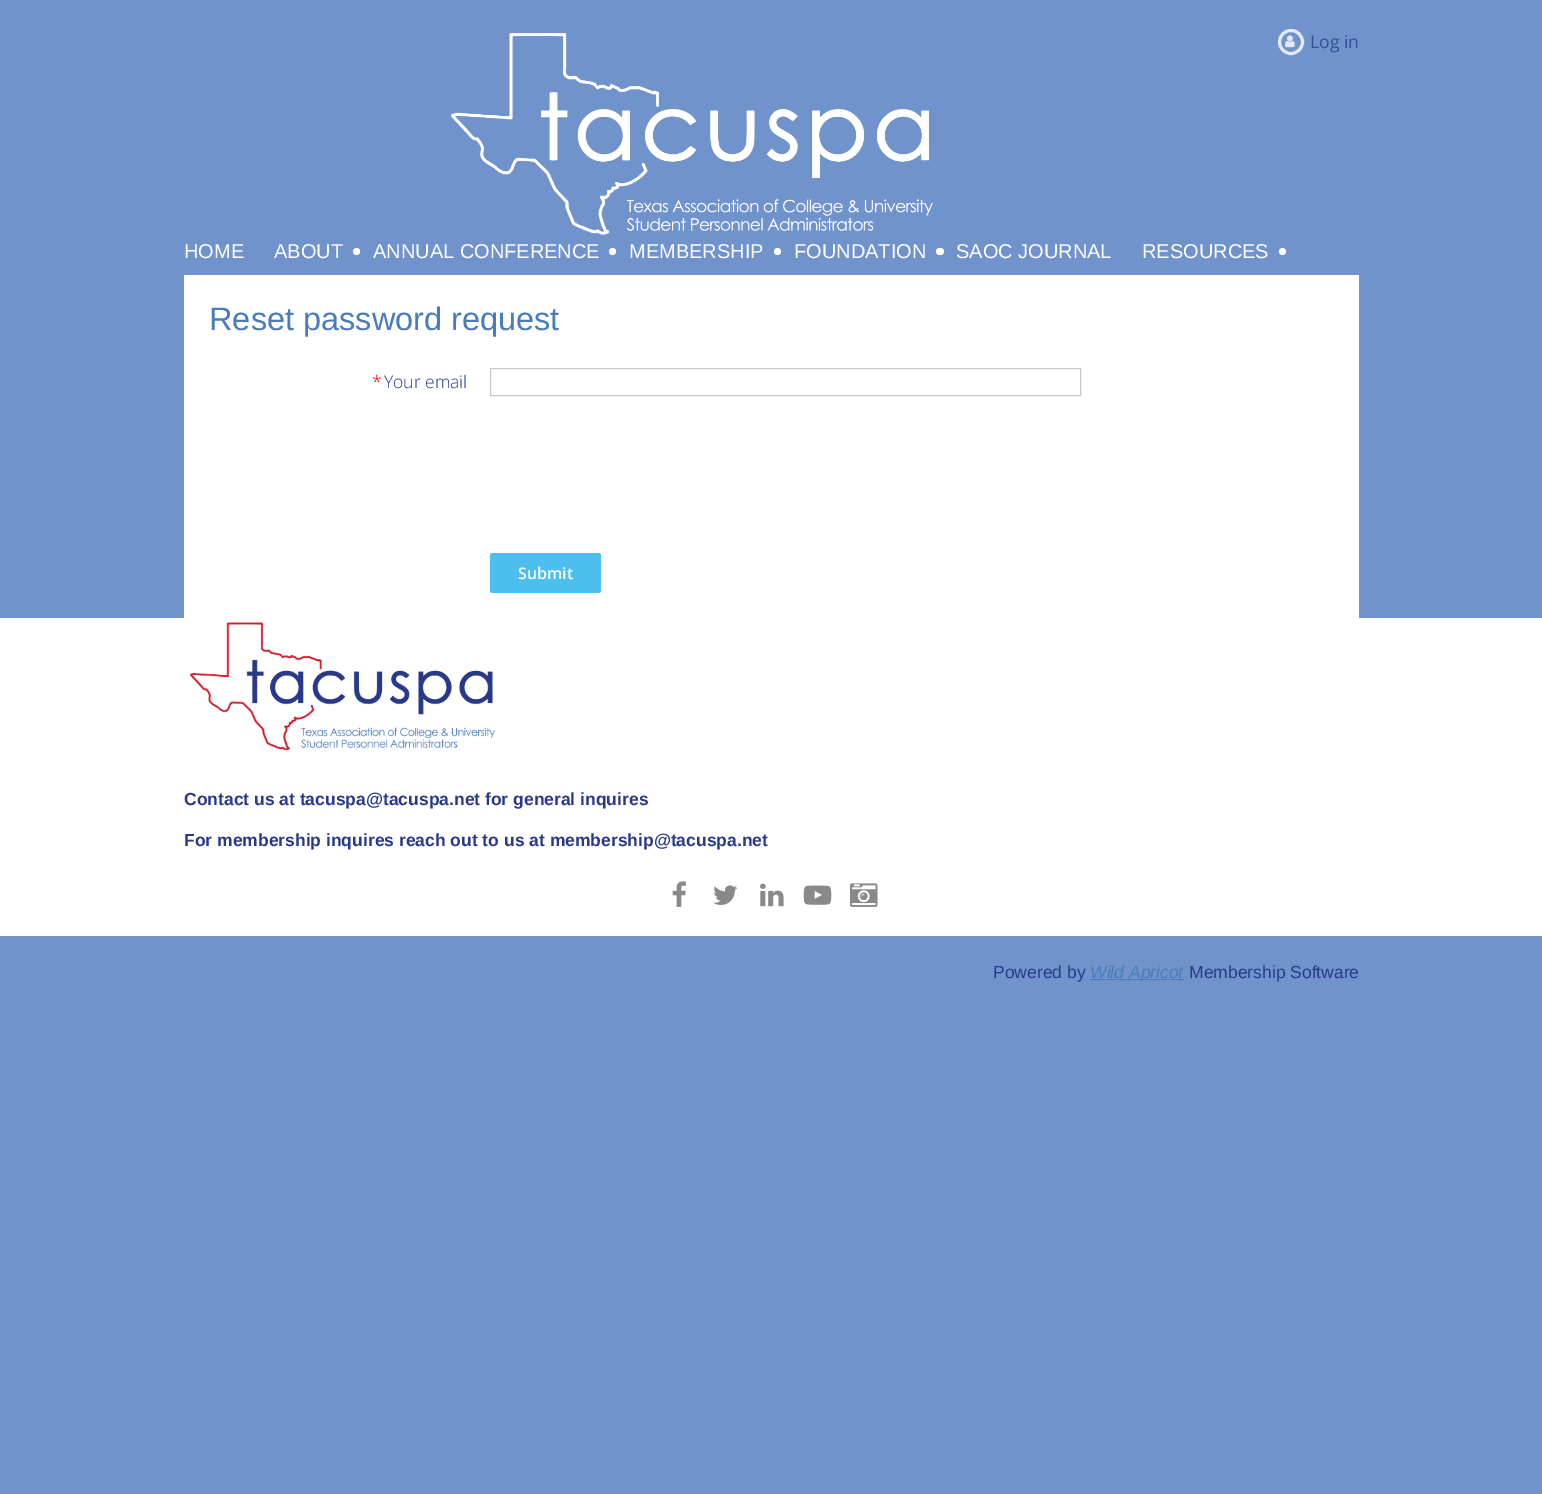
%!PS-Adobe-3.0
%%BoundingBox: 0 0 1542 1494
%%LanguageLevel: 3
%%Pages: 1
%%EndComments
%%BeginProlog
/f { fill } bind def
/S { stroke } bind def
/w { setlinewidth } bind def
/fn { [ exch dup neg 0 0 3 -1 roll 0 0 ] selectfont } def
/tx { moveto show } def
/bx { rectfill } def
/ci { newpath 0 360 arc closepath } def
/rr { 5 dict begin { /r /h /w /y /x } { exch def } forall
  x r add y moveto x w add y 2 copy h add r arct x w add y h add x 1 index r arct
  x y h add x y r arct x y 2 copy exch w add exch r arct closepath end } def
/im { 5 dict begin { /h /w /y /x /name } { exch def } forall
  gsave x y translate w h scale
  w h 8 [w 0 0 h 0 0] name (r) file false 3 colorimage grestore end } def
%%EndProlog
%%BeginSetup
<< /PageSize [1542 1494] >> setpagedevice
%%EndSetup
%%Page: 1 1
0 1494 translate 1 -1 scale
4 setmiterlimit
0.443 0.576 0.8 setrgbcolor
0 0 1542 1494 bx
(image0.raw) 451 33 482 202 im
0.89 0.914 0.961 setrgbcolor
3 w
1291 42 11.5 ci S
(image1.raw) 1285 35 10 13 im
/OpenSans-Regular 17.5 fn
0.216 0.294 0.588 setrgbcolor
(Log in) 1310 48 tx
/LiberationSans-Regular 20 fn
0.996 setgray
(HOME) 184 258 tx
(ABOUT) 274 258 tx
1 setgray
356.5 251.5 3.5 ci f
0.996 setgray
(ANNUAL CONFERENCE) 373 258 tx
1 setgray
612.5 251.5 3.5 ci f
0.996 setgray
(MEMBERSHIP) 629 258 tx
1 setgray
777.5 251.5 3.5 ci f
0.996 setgray
(FOUNDATION) 794 258 tx
1 setgray
936 248 8 7 3.5 rr f
0.996 setgray
(SAOC JOURNAL) 956 258 tx
(RESOURCES) 1142 258 tx
1 setgray
1282.5 251.5 3.5 ci f
184 275 1175 343 bx
/LiberationSans-Regular 32.5 fn
0.282 0.486 0.737 setrgbcolor
(Reset password request) 209 330 tx
/OpenSans-Light 17.5 fn
1 0 0 setrgbcolor
(*) 372 388 tx
0.157 0.224 0.537 setrgbcolor
(Your email) 384 388 tx
0.792 setgray
1 w
490.5 368.5 590 27 rectstroke
0.302 0.749 0.937 setrgbcolor
490 553 111 40 2.5 rr f
/OpenSans-SemiBold 16 fn
0.996 setgray
(Submit) 518 579 tx
1 setgray
0 618 1542 318 bx
(image2.raw) 189 622 306 129 im
/LiberationSans-Bold 17.5 fn
0.157 0.224 0.537 setrgbcolor
(Contact us at tacuspa@tacuspa.net for general inquires) 184 805 tx
(For membership inquires reach out to us at membership@tacuspa.net) 184 846 tx
(image3.raw) 672 881 14 26 im
(image4.raw) 713 885 25 20 im
(image5.raw) 760 883 24 24 im
(image6.raw) 803 885 29 20 im
(image7.raw) 850 883 28 24 im
/LiberationSans-Regular 17.5 fn
(Powered by) 993 978 tx
0.282 0.486 0.737 setrgbcolor
1090 979 94 1 bx
/LiberationSans-Italic 17.5 fn
(Wild Apricot) 1090 978 tx
/LiberationSans-Regular 17.5 fn
0.157 0.224 0.537 setrgbcolor
(Membership Software) 1189 978 tx
showpage
%%EOF
